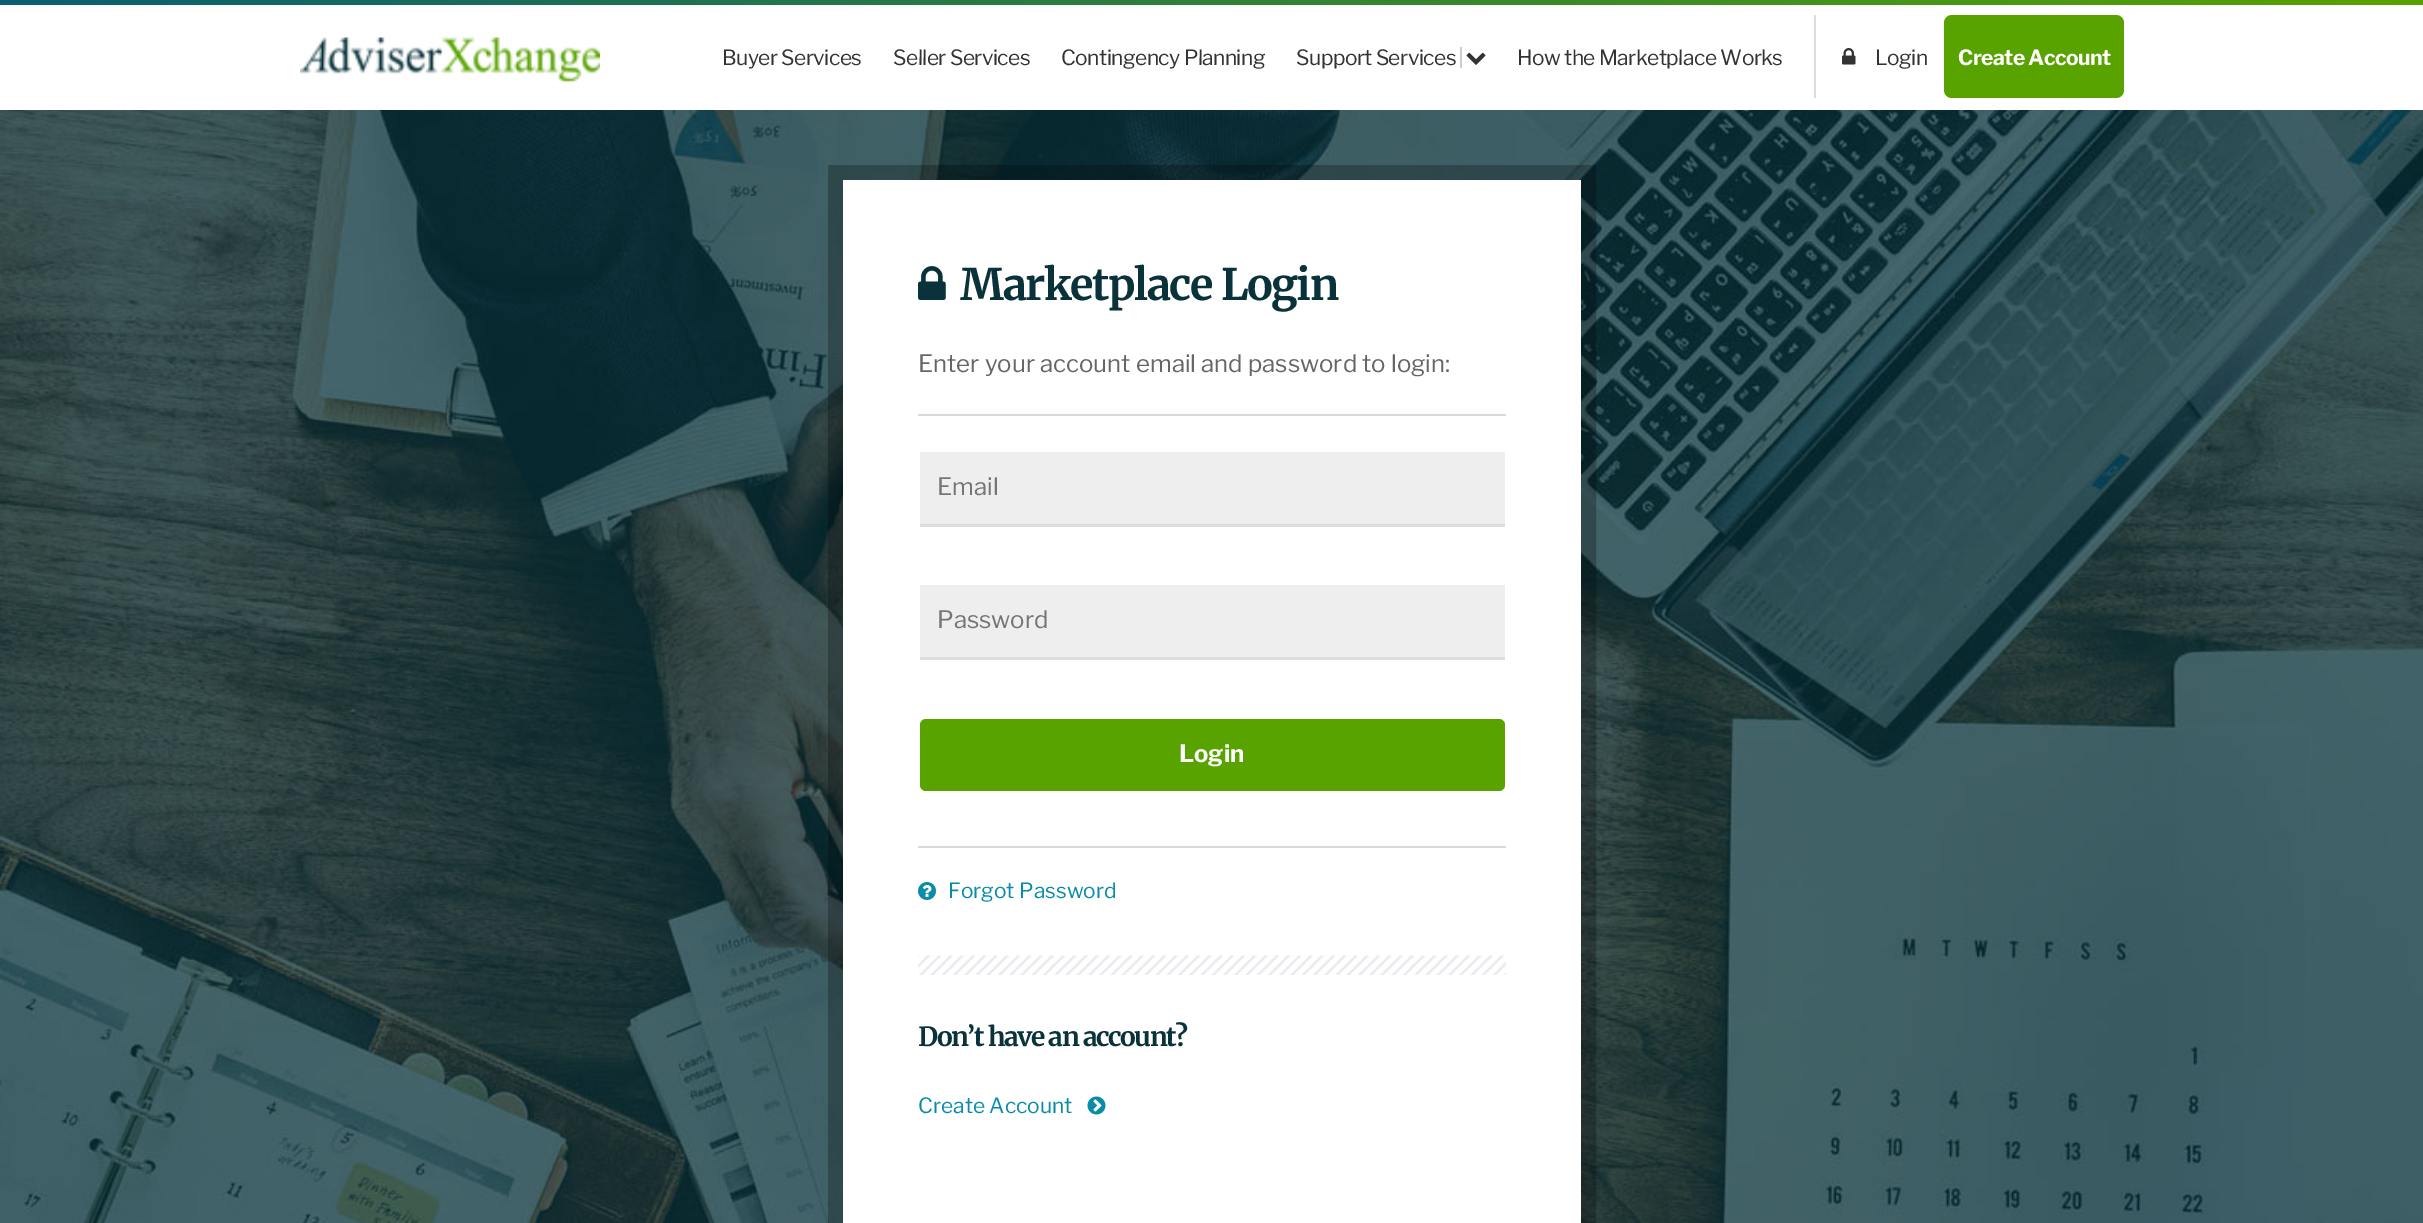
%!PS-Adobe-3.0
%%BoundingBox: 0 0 2423 1223
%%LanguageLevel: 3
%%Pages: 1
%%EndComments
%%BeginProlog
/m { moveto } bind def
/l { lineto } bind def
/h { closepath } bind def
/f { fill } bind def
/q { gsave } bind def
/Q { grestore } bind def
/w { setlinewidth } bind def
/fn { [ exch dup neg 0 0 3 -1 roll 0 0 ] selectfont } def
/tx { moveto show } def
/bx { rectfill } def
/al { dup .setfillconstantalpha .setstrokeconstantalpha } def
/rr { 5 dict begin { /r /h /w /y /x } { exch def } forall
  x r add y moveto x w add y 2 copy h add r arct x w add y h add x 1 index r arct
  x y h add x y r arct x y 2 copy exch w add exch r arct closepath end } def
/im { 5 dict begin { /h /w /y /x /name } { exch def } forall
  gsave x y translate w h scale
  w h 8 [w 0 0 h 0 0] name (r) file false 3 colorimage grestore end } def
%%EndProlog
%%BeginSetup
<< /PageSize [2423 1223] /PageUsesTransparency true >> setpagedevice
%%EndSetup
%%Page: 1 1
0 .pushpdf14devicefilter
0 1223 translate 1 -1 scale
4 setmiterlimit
1 setgray
0 0 2423 1223 bx
q 0 0 m 2423 0 l 2423 5 l 0 5 l h clip newpath
<< /ShadingType 2 /ColorSpace /DeviceRGB /Coords [605 609 1819 -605] /Extend [true true] /Function << /FunctionType 2 /Domain [0 1] /C0 [0.035 0.373 0.447] /C1 [0.345 0.639 0] /N 1 >> >> shfill Q
(image0.raw) 300 37 300 45 im
/LibreFranklin-Regular 21 fn
0.2 setgray
722 65 m -0.55 0 (Buyer Services) ashow
893 65 m -0.55 0 (Seller Services) ashow
1061 65 m -0.55 0 (Contingency Planning) ashow
1296 65 m -0.55 0 (Support Services) ashow
0.8 setgray
1460 47 2 21 bx
(image1.raw) 1466 52 20 13 im
0.2 setgray
1517 65 m -0.55 0 (How the Marketplace Works) ashow
0.867 setgray
1814 15 2 83 bx
(image2.raw) 1842 48 14 17 im
0.2 setgray
1875 65 m -0.55 0 (Login) ashow
0.345 0.639 0 setrgbcolor
1944 15 180 83 8 rr f
/LibreFranklin-Bold 21 fn
1 setgray
1958 65 m -0.55 0 (Create Account) ashow
(image3.raw) 0 110 2423 1113 im
0.25 al
0 setgray
15 w
835.5 172.5 753 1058 rectstroke
1 al
1 setgray
843 180 738 1043 bx
(image4.raw) 918 266 28 34 im
/Merriweather-Bold 43.25 fn
0.035 0.196 0.231 setrgbcolor
960 300 m -1.5 0 (Marketplace Login) ashow
/LibreFranklin-Regular 24 fn
0.4 setgray
(Enter your account email and password to login:) 918 372 tx
0.851 setgray
918 414 588 2 bx
0.933 setgray
920 452 585 72 bx
0.867 setgray
920 524 585 3 bx
0.459 setgray
(Email) 937 495 tx
0.933 setgray
920 585 585 72 bx
0.867 setgray
920 657 585 3 bx
0.459 setgray
(Password) 937 628 tx
0.345 0.639 0 setrgbcolor
920 719 585 72 6 rr f
/LibreFranklin-Bold 24 fn
1 setgray
(Login) 1179 762 tx
0.851 setgray
918 846 588 2 bx
(image5.raw) 918 882 18 18 im
/LibreFranklin-Regular 21 fn
0.035 0.549 0.659 setrgbcolor
(Forgot Password) 948 898 tx
(image6.raw) 918 955 588 20 im
/Merriweather-Bold 26.4 fn
0.035 0.196 0.231 setrgbcolor
918 1046 m -1.5 0 (Don’t have an account?) ashow
/LibreFranklin-Regular 21 fn
0.035 0.549 0.659 setrgbcolor
(Create Account) 918 1113 tx
(image7.raw) 1087 1096 19 19 im
.poppdf14devicefilter showpage
%%EOF
